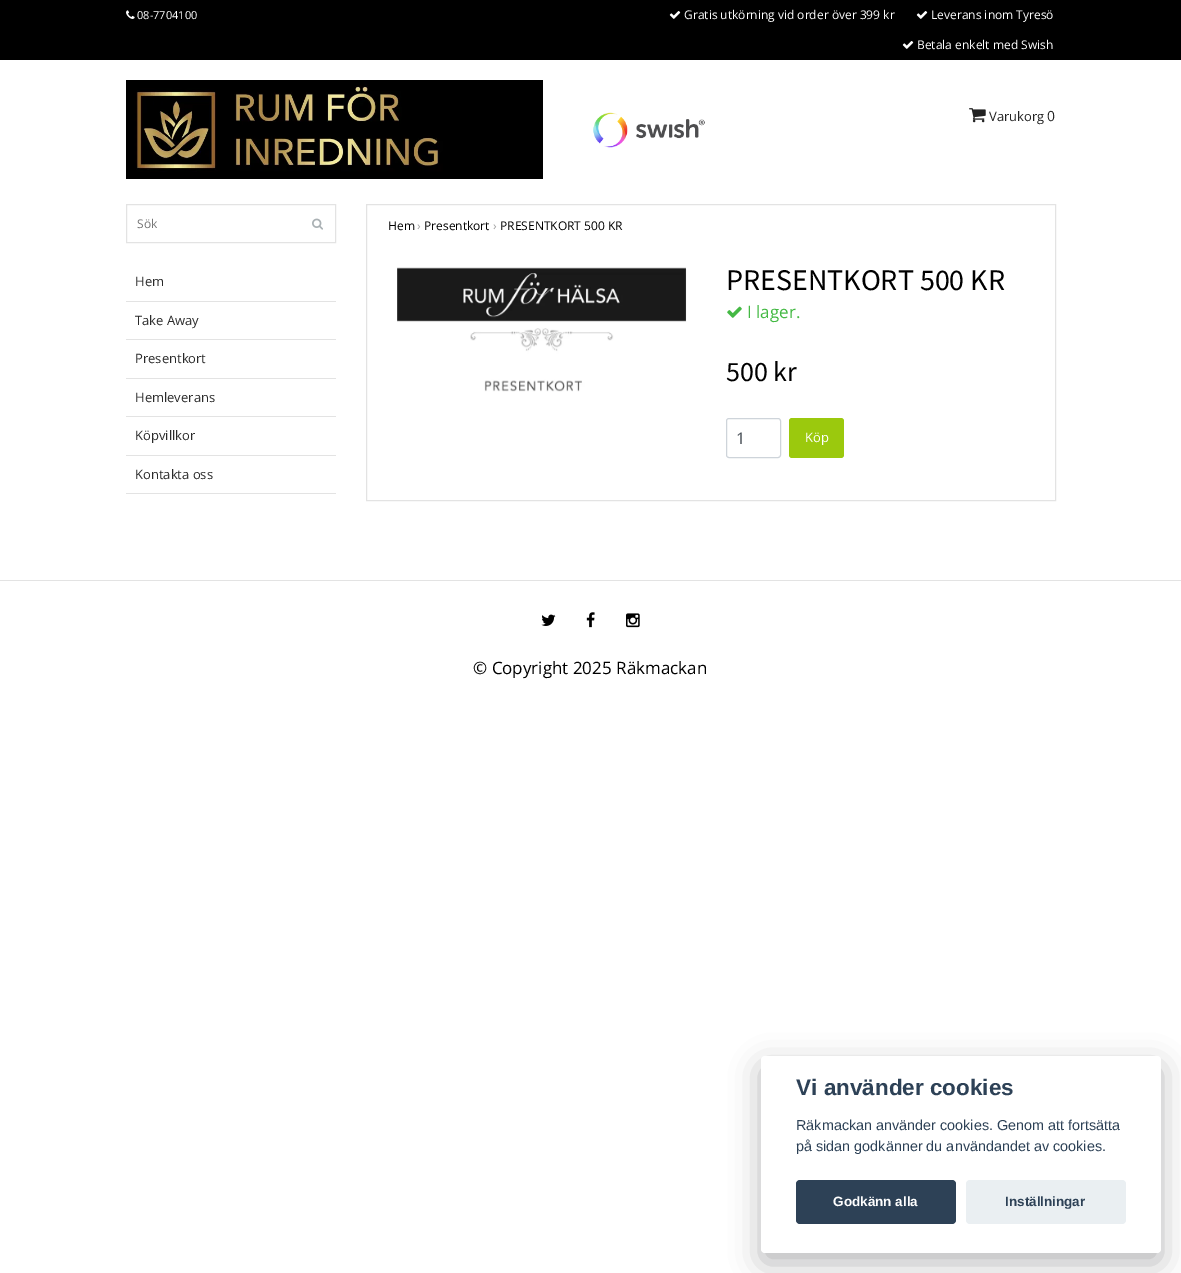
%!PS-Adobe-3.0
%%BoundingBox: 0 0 1181 1273
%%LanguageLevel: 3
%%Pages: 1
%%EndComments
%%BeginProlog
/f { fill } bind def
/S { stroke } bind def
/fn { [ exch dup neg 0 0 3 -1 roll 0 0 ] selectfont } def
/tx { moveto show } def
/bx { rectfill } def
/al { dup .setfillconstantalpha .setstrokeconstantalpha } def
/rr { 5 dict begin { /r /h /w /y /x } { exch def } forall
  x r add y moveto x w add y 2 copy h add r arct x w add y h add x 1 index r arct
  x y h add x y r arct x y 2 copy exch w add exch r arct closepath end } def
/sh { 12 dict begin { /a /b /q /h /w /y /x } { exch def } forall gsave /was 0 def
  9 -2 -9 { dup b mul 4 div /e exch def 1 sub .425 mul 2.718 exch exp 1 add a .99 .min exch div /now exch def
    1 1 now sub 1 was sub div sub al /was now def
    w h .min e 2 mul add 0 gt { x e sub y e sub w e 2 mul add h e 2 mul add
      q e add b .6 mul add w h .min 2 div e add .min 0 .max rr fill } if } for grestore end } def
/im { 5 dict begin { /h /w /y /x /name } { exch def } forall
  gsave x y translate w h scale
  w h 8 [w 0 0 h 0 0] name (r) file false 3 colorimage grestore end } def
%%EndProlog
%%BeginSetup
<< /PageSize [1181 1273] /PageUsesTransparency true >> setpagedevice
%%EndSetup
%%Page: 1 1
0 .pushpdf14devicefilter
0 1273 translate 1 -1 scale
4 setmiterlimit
1 setgray
0 0 1181 1273 bx
0 setgray
0 0 1181 60 bx
(image0.raw) 126 10 9 9 im
/OpenSans-Regular 11 fn
1 setgray
(08-7704100) 137 19 tx
(image1.raw) 669 11 12 8 im
/OpenSans-Regular 12 fn
(Gratis utkörning vid order över 399 kr) 684 19 tx
(image1.raw) 916 11 12 8 im
(Leverans inom Tyresö) 931 19 tx
(image1.raw) 902 41 12 8 im
(Betala enkelt med Swish) 917 49 tx
(image2.raw) 126 80 417 99 im
(image3.raw) 593 112 112 36 im
(image4.raw) 969 108 17 15 im
/OpenSans-Regular 13 fn
0.133 setgray
(Varukorg) 989 121 tx
/OpenSans-Regular 14 fn
(0) 1047 121 tx
0.89 setgray
126.5 204.5 209 38 rectstroke
/OpenSans-Regular 12 fn
0.459 setgray
(Sök) 137 228 tx
(image5.raw) 312 218 11 12 im
0.89 setgray
126 301 210 1 bx
/OpenSans-Regular 13 fn
0.165 setgray
(Hem) 135 286 tx
0.89 setgray
126 339 210 1 bx
0.165 setgray
(Take Away) 135 325 tx
0.89 setgray
126 378 210 1 bx
0.165 setgray
(Presentkort) 135 363 tx
0.89 setgray
126 416 210 1 bx
0.165 setgray
(Hemleverans) 135 402 tx
0.89 setgray
126 455 210 1 bx
0.165 setgray
(Köpvillkor) 135 440 tx
0.89 setgray
126 493 210 1 bx
0.165 setgray
(Kontakta oss) 135 479 tx
0.89 setgray
366.5 204.5 689 296 rectstroke
/OpenSans-Regular 12 fn
0 setgray
(Hem) 388 230 tx
0.631 setgray
(›) 417 230 tx
0 setgray
(Presentkort) 424 230 tx
0.631 setgray
(›) 493 230 tx
0 setgray
(PRESENTKORT 500 KR) 500 230 tx
(image6.raw) 397 267 290 125 im
/SourceSansPro-Regular 30 fn
(PRESENTKORT 500 KR) 726 290 tx
(image7.raw) 727 306 15 12 im
/OpenSans-Regular 17 fn
0.267 0.725 0.267 setrgbcolor
(I lager.) 747 318 tx
/SourceSansPro-Regular 28 fn
0 setgray
(500 kr) 726 381 tx
0.808 0.831 0.855 setrgbcolor
726.5 418.5 54 39 2.5 rr S
/OpenSans-Regular 16 fn
0.286 0.314 0.341 setrgbcolor
(1) 736 444 tx
0.608 0.788 0.051 setrgbcolor
789 418 55 40 3 rr f
/OpenSans-Regular 13 fn
1 setgray
(Köp) 805 442 tx
0.89 setgray
0 580 1181 1 bx
(image8.raw) 541 614 15 12 im
(image9.raw) 586 612 9 16 im
(image10.raw) 626 613 14 15 im
/OpenSans-Regular 17 fn
0 setgray
(© Copyright 2025 Räkmackan) 473 674 tx
0.008 0.008 0.012 setrgbcolor
761 1066 400 197 4 15 0.28 sh
1 setgray
761 1056 400 197 4 rr f
/LiberationSans-Bold 22.5 fn
0.176 0.255 0.337 setrgbcolor
(Vi använder cookies) 796 1095 tx
/LiberationSans-Regular 14.4 fn
(Räkmackan använder cookies. Genom att fortsätta) 796 1130 tx
(på sidan godkänner du användandet av cookies.) 796 1151 tx
796 1180 160 44 4 rr f
/LiberationSans-Bold 13.5 fn
1 setgray
(Godkänn alla) 833 1206 tx
0.918 0.937 0.949 setrgbcolor
966 1180 160 44 4 rr f
0.176 0.255 0.337 setrgbcolor
(Inställningar) 1005 1206 tx
.poppdf14devicefilter showpage
%%EOF
